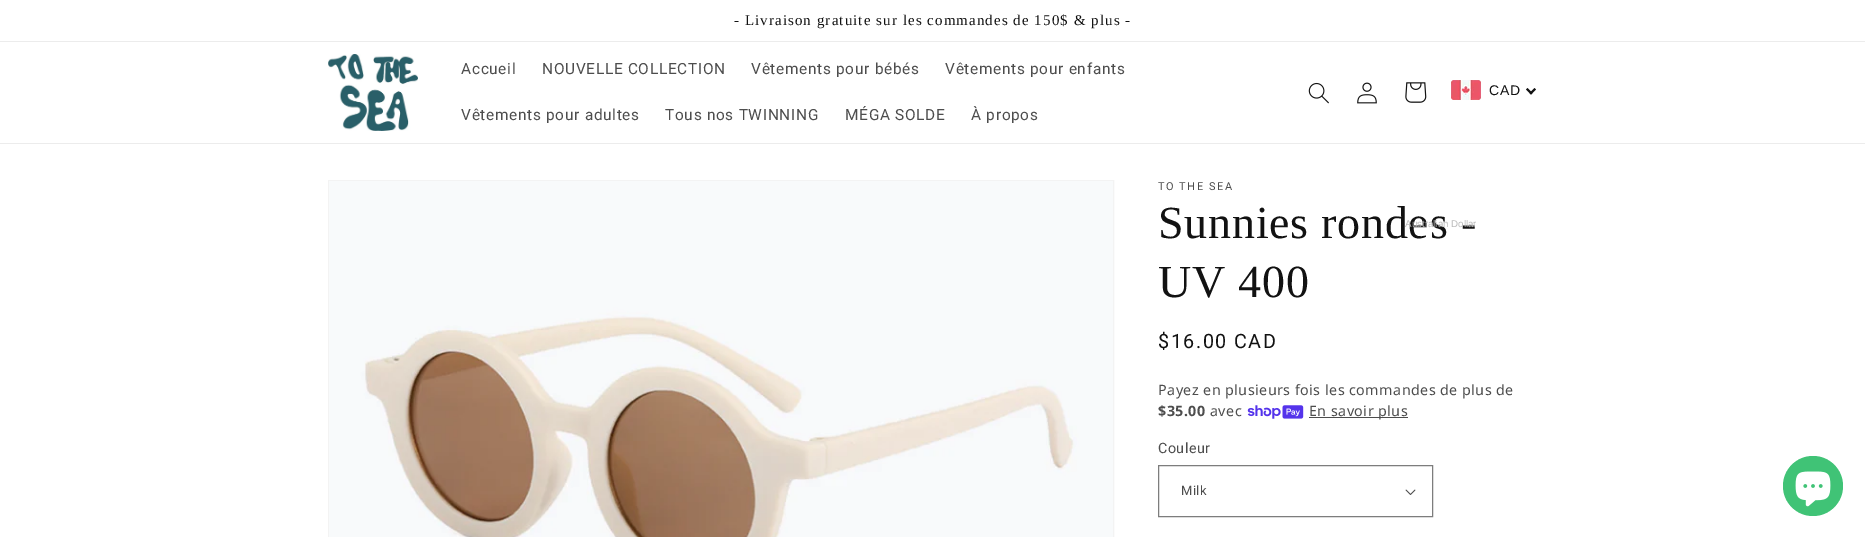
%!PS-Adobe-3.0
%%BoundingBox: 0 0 1865 537
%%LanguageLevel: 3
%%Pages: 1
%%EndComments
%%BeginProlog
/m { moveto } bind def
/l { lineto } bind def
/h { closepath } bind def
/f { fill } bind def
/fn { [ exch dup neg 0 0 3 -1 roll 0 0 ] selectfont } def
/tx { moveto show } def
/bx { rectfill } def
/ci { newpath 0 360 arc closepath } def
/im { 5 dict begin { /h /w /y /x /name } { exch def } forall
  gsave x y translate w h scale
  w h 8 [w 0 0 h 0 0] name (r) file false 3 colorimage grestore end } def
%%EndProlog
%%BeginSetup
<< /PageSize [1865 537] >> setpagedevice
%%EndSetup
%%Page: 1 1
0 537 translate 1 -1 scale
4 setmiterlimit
1 setgray
0 0 1865 537 bx
0.925 setgray
0 41 1865 1 bx
/LiberationSerif-Regular 14.95 fn
0.071 setgray
734 25 m 1.1 0 (- Livraison gratuite sur les commandes de 150$ & plus -) ashow
0.925 setgray
0 143 1865 1 bx
(image0.raw) 328 54 90 77 im
/Roboto-Regular 15.4 fn
0.302 setgray
461 74 m 0.7 0 (Accueil) ashow
542 74 m 0.7 0 (NOUVELLE COLLECTION) ashow
751 74 m 0.7 0 (Vêtements pour bébés) ashow
945 74 m 0.7 0 (Vêtements pour enfants) ashow
461 120 m 0.7 0 (Vêtements pour adultes) ashow
665 120 m 0.7 0 (Tous nos TWINNING) ashow
845 120 m 0.7 0 (MÉGA SOLDE) ashow
971 120 m 0.7 0 (À propos) ashow
(image1.raw) 1308 82 21 22 im
(image2.raw) 1357 82 20 22 im
(image3.raw) 1405 82 22 21 im
(image4.raw) 1451 80 30 20 im
/LiberationSans-Regular 14 fn
0.071 setgray
1489 95 m 0.7 0 (CAD) ashow
1534.5 88 m 1536 89.5 l 1531 94.5 l 1529.5 93 l h f
1527.5 88 m 1532.5 93 l 1531 94.5 l 1526 89.5 l h f
/LiberationSerif-Regular 46 fn
1158 238 m 0.75 0 (Sunnies rondes -) ashow
/LiberationSans-Regular 9.75 fn
0.737 setgray
(Australian Dollar) 1405 227 tx
0.953 setgray
328.5 180.5 785 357 rectstroke
(image5.raw) 329 181 784 356 im
/Roboto-Regular 11 fn
0.302 setgray
1158 190 m 1.5 0 (TO THE SEA) ashow
/LiberationSerif-Regular 46 fn
0.071 setgray
1158 297 m 0.75 0 (UV 400) ashow
/Roboto-Regular 19.75 fn
1158 348 m 1.5 0 ($16.00 CAD) ashow
/NotoSans-Regular 14.3 fn
0.302 setgray
1158 395 m 0.45 0 (Payez en plusieurs fois les commandes de plus de) ashow
/NotoSans-Bold 14.3 fn
1158 416 m 0.45 0 ($35.00) ashow
/NotoSans-Regular 14.3 fn
1210 416 m 0.45 0 (avec) ashow
(image6.raw) 1247 405 57 14 im
1309 417 99 1 bx
1309 416 m 0.45 0 (En savoir plus) ashow
/Roboto-Regular 14.3 fn
1158 453 m 0.45 0 (Couleur) ashow
(image7.raw) 1405 489 11 6 im
0.49 setgray
1158.5 465.5 274 51 rectstroke
/Roboto-Regular 13 fn
0.302 setgray
1181 495 m 0.45 0 (Milk) ashow
0.251 0.765 0.463 setrgbcolor
1813 486 30 ci f
(image8.raw) 1795 471 36 36 im
showpage
%%EOF
